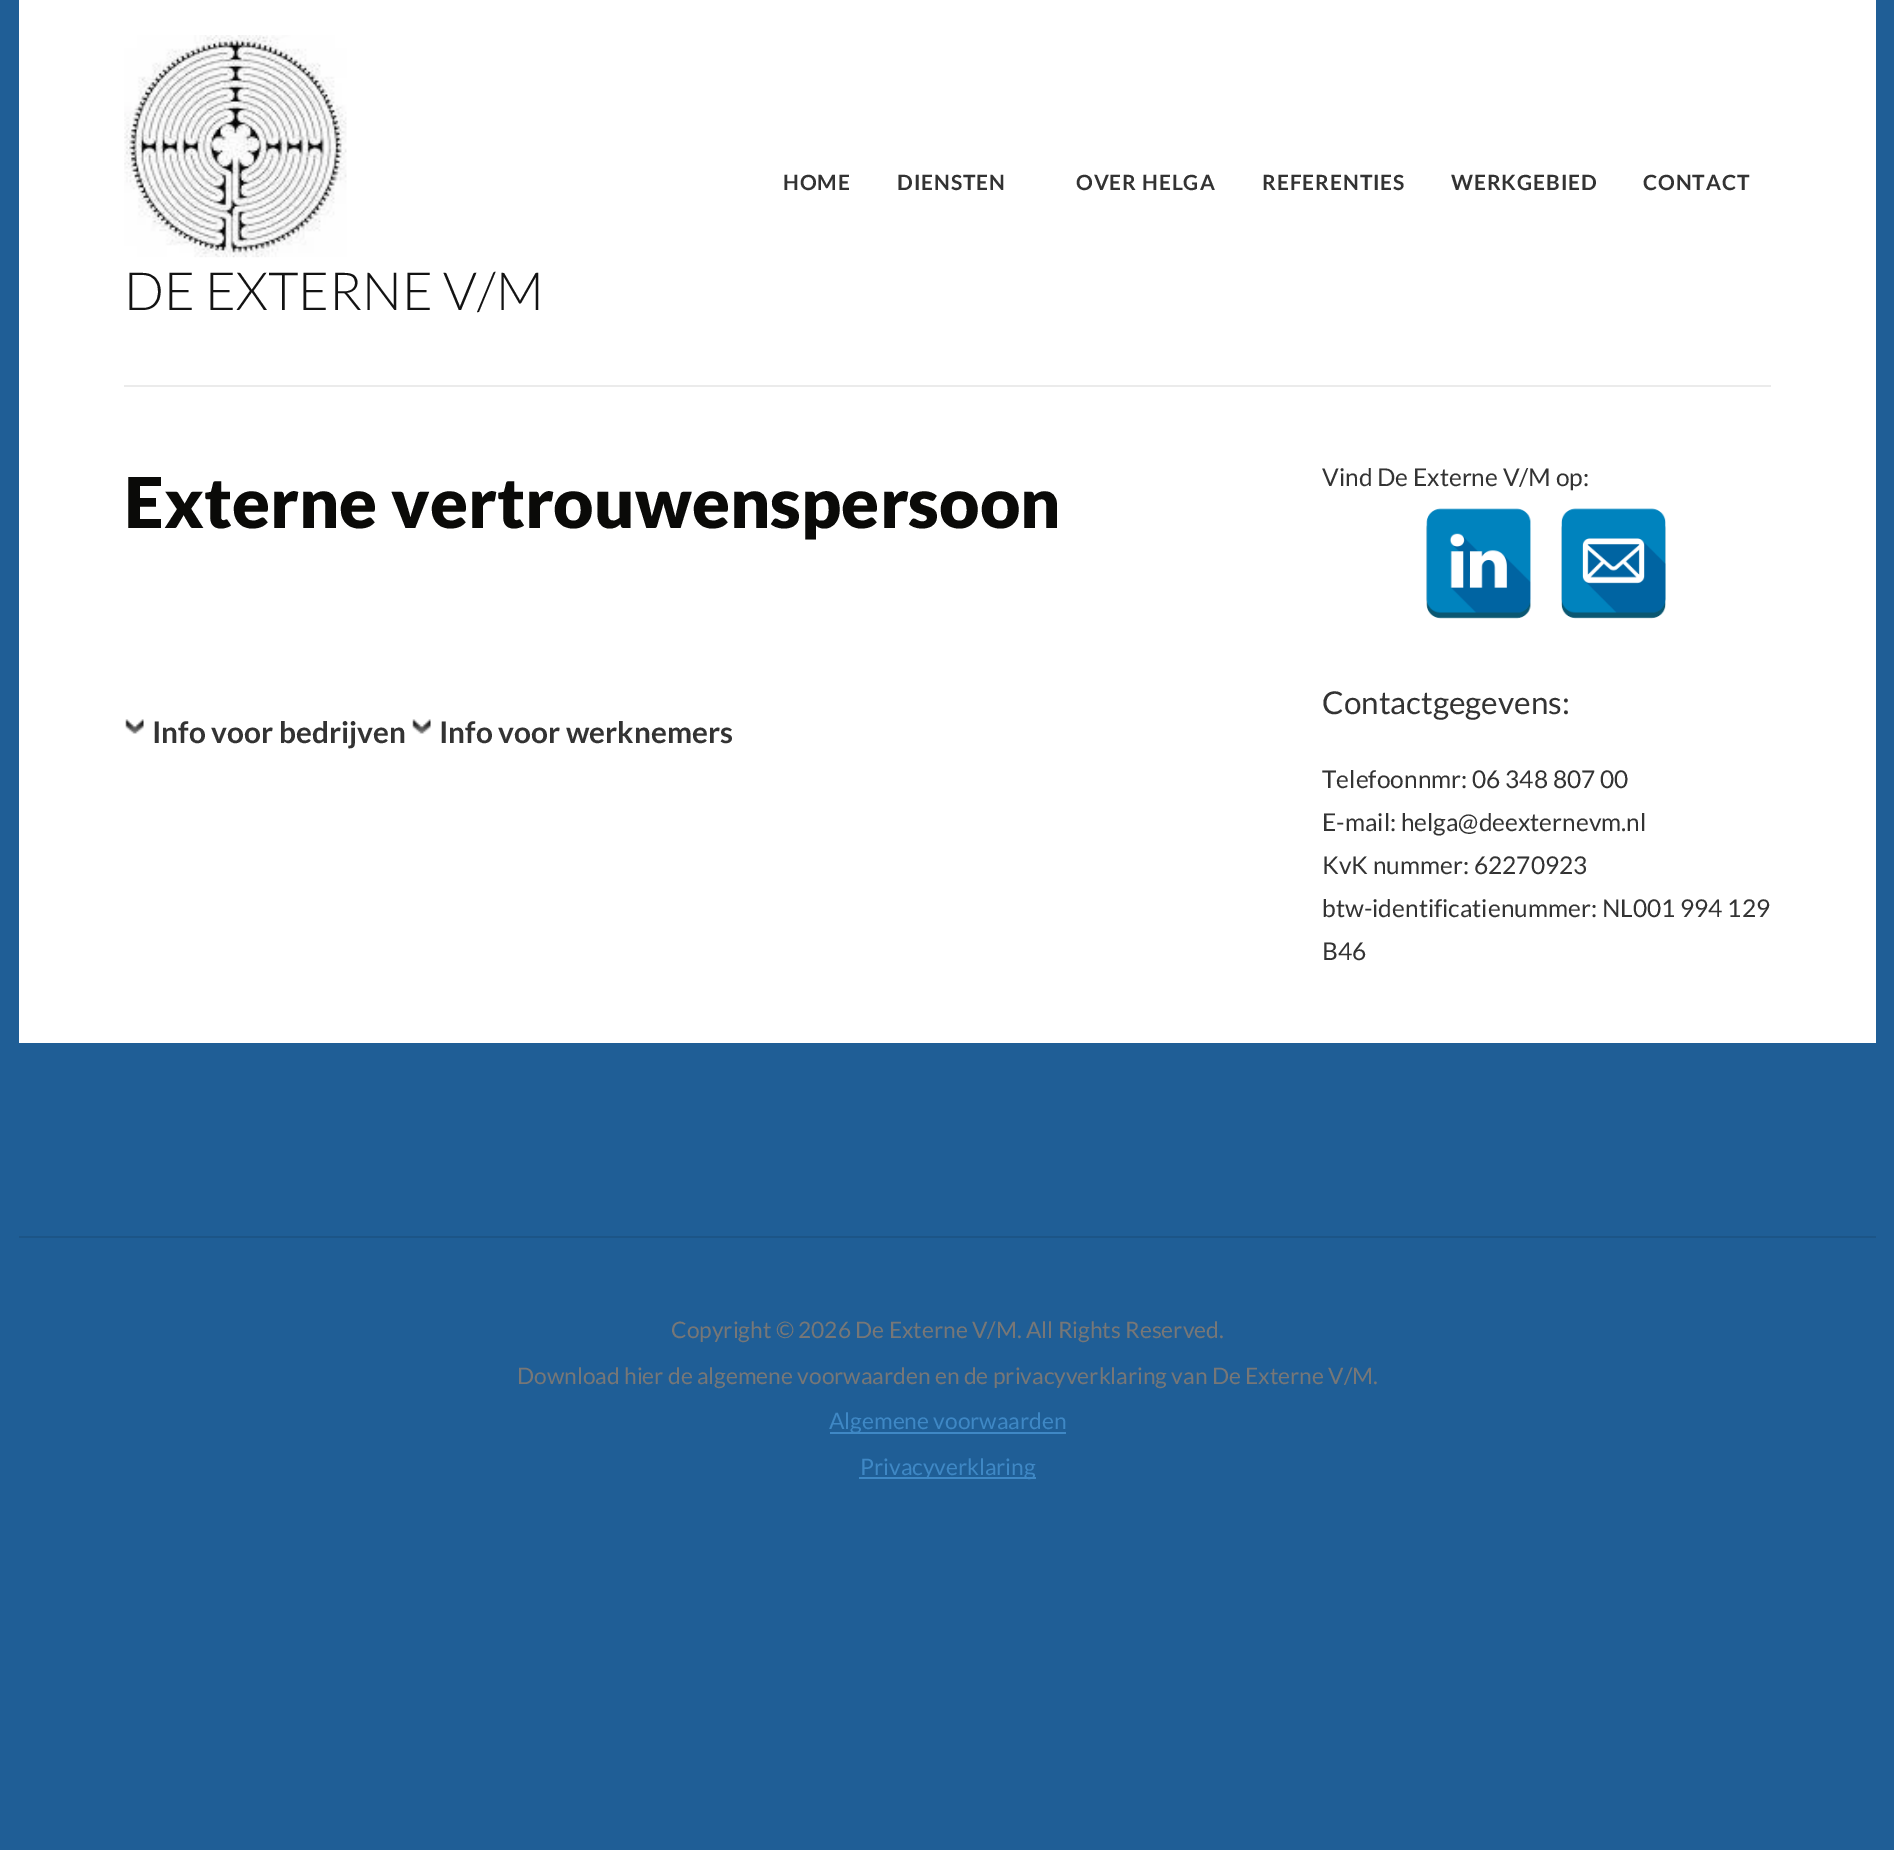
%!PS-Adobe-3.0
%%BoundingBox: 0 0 1894 1850
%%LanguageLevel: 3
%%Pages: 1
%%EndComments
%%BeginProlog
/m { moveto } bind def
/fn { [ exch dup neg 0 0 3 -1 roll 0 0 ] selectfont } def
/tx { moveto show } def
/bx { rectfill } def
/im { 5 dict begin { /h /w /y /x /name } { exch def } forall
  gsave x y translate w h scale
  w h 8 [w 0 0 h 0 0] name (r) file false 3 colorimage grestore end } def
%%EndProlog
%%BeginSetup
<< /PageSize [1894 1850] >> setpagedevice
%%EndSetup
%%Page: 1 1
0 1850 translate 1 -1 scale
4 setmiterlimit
0.122 0.369 0.588 setrgbcolor
0 0 1894 1850 bx
1 setgray
19 0 1857 1043 bx
/Lato-Bold 21 fn
0.2 setgray
783 190 m 0.9 0 (HOME) ashow
897 190 m 0.9 0 (DIENSTEN) ashow
1076 190 m 0.9 0 (OVER HELGA) ashow
1262 190 m 0.9 0 (REFERENTIES) ashow
1451 190 m 0.9 0 (WERKGEBIED) ashow
1643 190 m 0.9 0 (CONTACT) ashow
(image0.raw) 124 35 223 223 im
/Lato-Light 52.5 fn
0.075 setgray
(DE EXTERNE V/M) 124 310 tx
0.922 setgray
124 385 1647 2 bx
/Lato-Black 70 fn
0.039 0.039 0.031 setrgbcolor
(Externe vertrouwenspersoon) 124 528 tx
(image1.raw) 125 719 19 15 im
/Lato-Bold 29.75 fn
0.2 setgray
(Info voor bedrijven) 152 743 tx
(image1.raw) 412 719 19 15 im
(Info voor werknemers) 439 743 tx
/Lato-Regular 24.5 fn
(Vind De Externe V/M op:) 1322 486 tx
(image2.raw) 1426 508 105 111 im
(image3.raw) 1561 508 105 111 im
/Lato-Regular 31.5 fn
(Contactgegevens:) 1322 714 tx
/Lato-Regular 24.5 fn
(Telefoonnmr: 06 348 807 00) 1322 788 tx
(E-mail: helga@deexternevm.nl) 1322 831 tx
(KvK nummer: 62270923) 1322 874 tx
(btw-identificatienummer: NL001 994 129) 1322 917 tx
(B46) 1322 960 tx
0.11 0.333 0.529 setrgbcolor
19 1236 1857 2 bx
/Lato-Regular 22.75 fn
0.467 setgray
(Copyright © 2026 De Externe V/M. All Rights Reserved.) 671 1338 tx
(Download hier de algemene voorwaarden en de privacyverklaring van De Externe V/M.) 517 1384 tx
0.247 0.533 0.773 setrgbcolor
830 1432 236 2 bx
(Algemene voorwaarden) 829 1429 tx
859 1477 177 2 bx
(Privacyverklaring) 860 1475 tx
showpage
%%EOF
